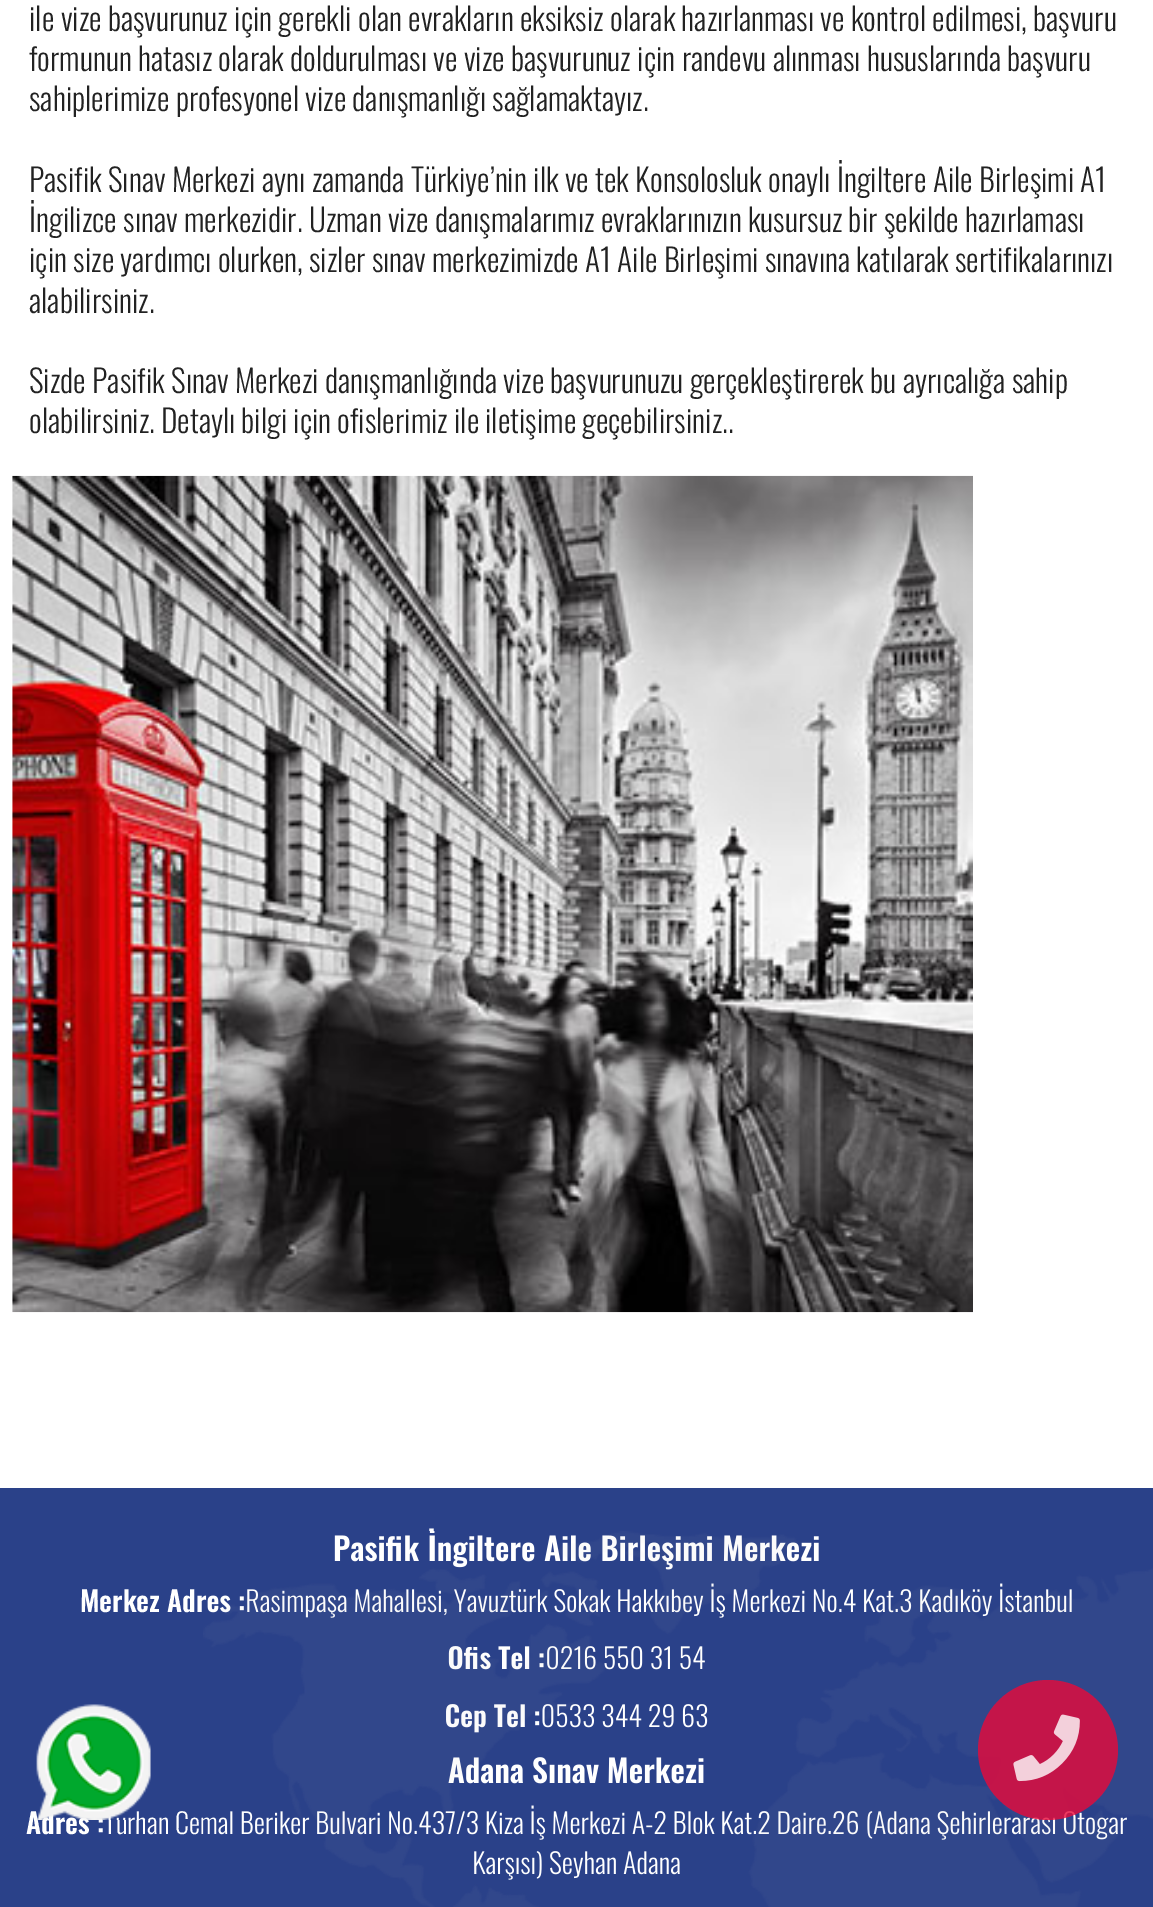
%!PS-Adobe-3.0
%%BoundingBox: 0 0 1153 1907
%%LanguageLevel: 3
%%Pages: 1
%%EndComments
%%BeginProlog
/m { moveto } bind def
/f { fill } bind def
/fn { [ exch dup neg 0 0 3 -1 roll 0 0 ] selectfont } def
/tx { moveto show } def
/bx { rectfill } def
/al { dup .setfillconstantalpha .setstrokeconstantalpha } def
/ci { newpath 0 360 arc closepath } def
/im { 5 dict begin { /h /w /y /x /name } { exch def } forall
  gsave x y translate w h scale
  w h 8 [w 0 0 h 0 0] name (r) file false 3 colorimage grestore end } def
%%EndProlog
%%BeginSetup
<< /PageSize [1153 1907] /PageUsesTransparency true >> setpagedevice
%%EndSetup
%%Page: 1 1
0 .pushpdf14devicefilter
0 1907 translate 1 -1 scale
4 setmiterlimit
1 setgray
0 0 1153 1907 bx
/Oswald-Light 31.5 fn
0.133 setgray
29 31 m -0.1 0 32 (ile vize başvurunuz için gerekli olan evrakların eksiksiz olarak hazırlanması ve kontrol edilmesi, başvuru) widthshow
(formunun hatasız olarak doldurulması ve vize başvurunuz için randevu alınması hususlarında başvuru) 29 71 tx
29 111 m -0.25 0 32 (sahiplerimize profesyonel vize danışmanlığı sağlamaktayız.) widthshow
29 192 m -0.1 0 32 (Pasifik Sınav Merkezi aynı zamanda Türkiye’nin ilk ve tek Konsolosluk onaylı İngiltere Aile Birleşimi A1) widthshow
29 232 m -0.1 0 32 (İngilizce sınav merkezidir. Uzman vize danışmalarımız evraklarınızın kusursuz bir şekilde hazırlaması) widthshow
29 272 m -0.25 0 32 (için size yardımcı olurken, sizler sınav merkezimizde A1 Aile Birleşimi sınavına katılarak sertifikalarınızı) widthshow
(alabilirsiniz.) 29 313 tx
29 393 m -0.1 0 32 (Sizde Pasifik Sınav Merkezi danışmanlığında vize başvurunuzu gerçekleştirerek bu ayrıcalığa sahip) widthshow
29 433 m -0.5 0 32 (olabilirsiniz. Detaylı bilgi için ofislerimiz ile iletişime geçebilirsiniz..) widthshow
(image0.raw) 12 475 961 838 im
0.165 0.255 0.537 setrgbcolor
0 1488 1153 419 bx
/Oswald-SemiBold 31.5 fn
1 setgray
333 1561 m 0.5 0 32 (Pasifik İngiltere Aile Birleşimi Merkezi) widthshow
/Oswald-SemiBold 28 fn
(Merkez Adres :) 80 1612 tx
/Oswald-Light 28 fn
(Rasimpaşa Mahallesi, Yavuztürk Sokak Hakkıbey İş Merkezi No.4 Kat.3 Kadıköy İstanbul) 245 1612 tx
/Oswald-SemiBold 28 fn
(Ofis Tel :) 448 1669 tx
/Oswald-Light 28 fn
(0216 550 31 54) 545 1669 tx
/Oswald-SemiBold 28 fn
(Cep Tel :) 445 1727 tx
/Oswald-Light 28 fn
(0533 344 29 63) 541 1727 tx
/Oswald-SemiBold 31.5 fn
(Adana Sınav Merkezi) 448 1783 tx
/Oswald-Light 28 fn
(Turhan Cemal Beriker Bulvari No.437/3 Kiza İş Merkezi A-2 Blok Kat.2 Daire.26 \(Adana Şehirlerarası Otogar) 104 1834 tx
(Karşısı\) Seyhan Adana) 472 1874 tx
(image1.raw) 203 1531 950 376 im
/Oswald-SemiBold 28 fn
(Adres :) 26 1834 tx
(image2.raw) 36 1704 115 116 im
0.8 al
0.914 0.035 0.224 setrgbcolor
1048 1750 70 ci f
1 al
(image3.raw) 1013 1714 67 68 im
.poppdf14devicefilter showpage
%%EOF
